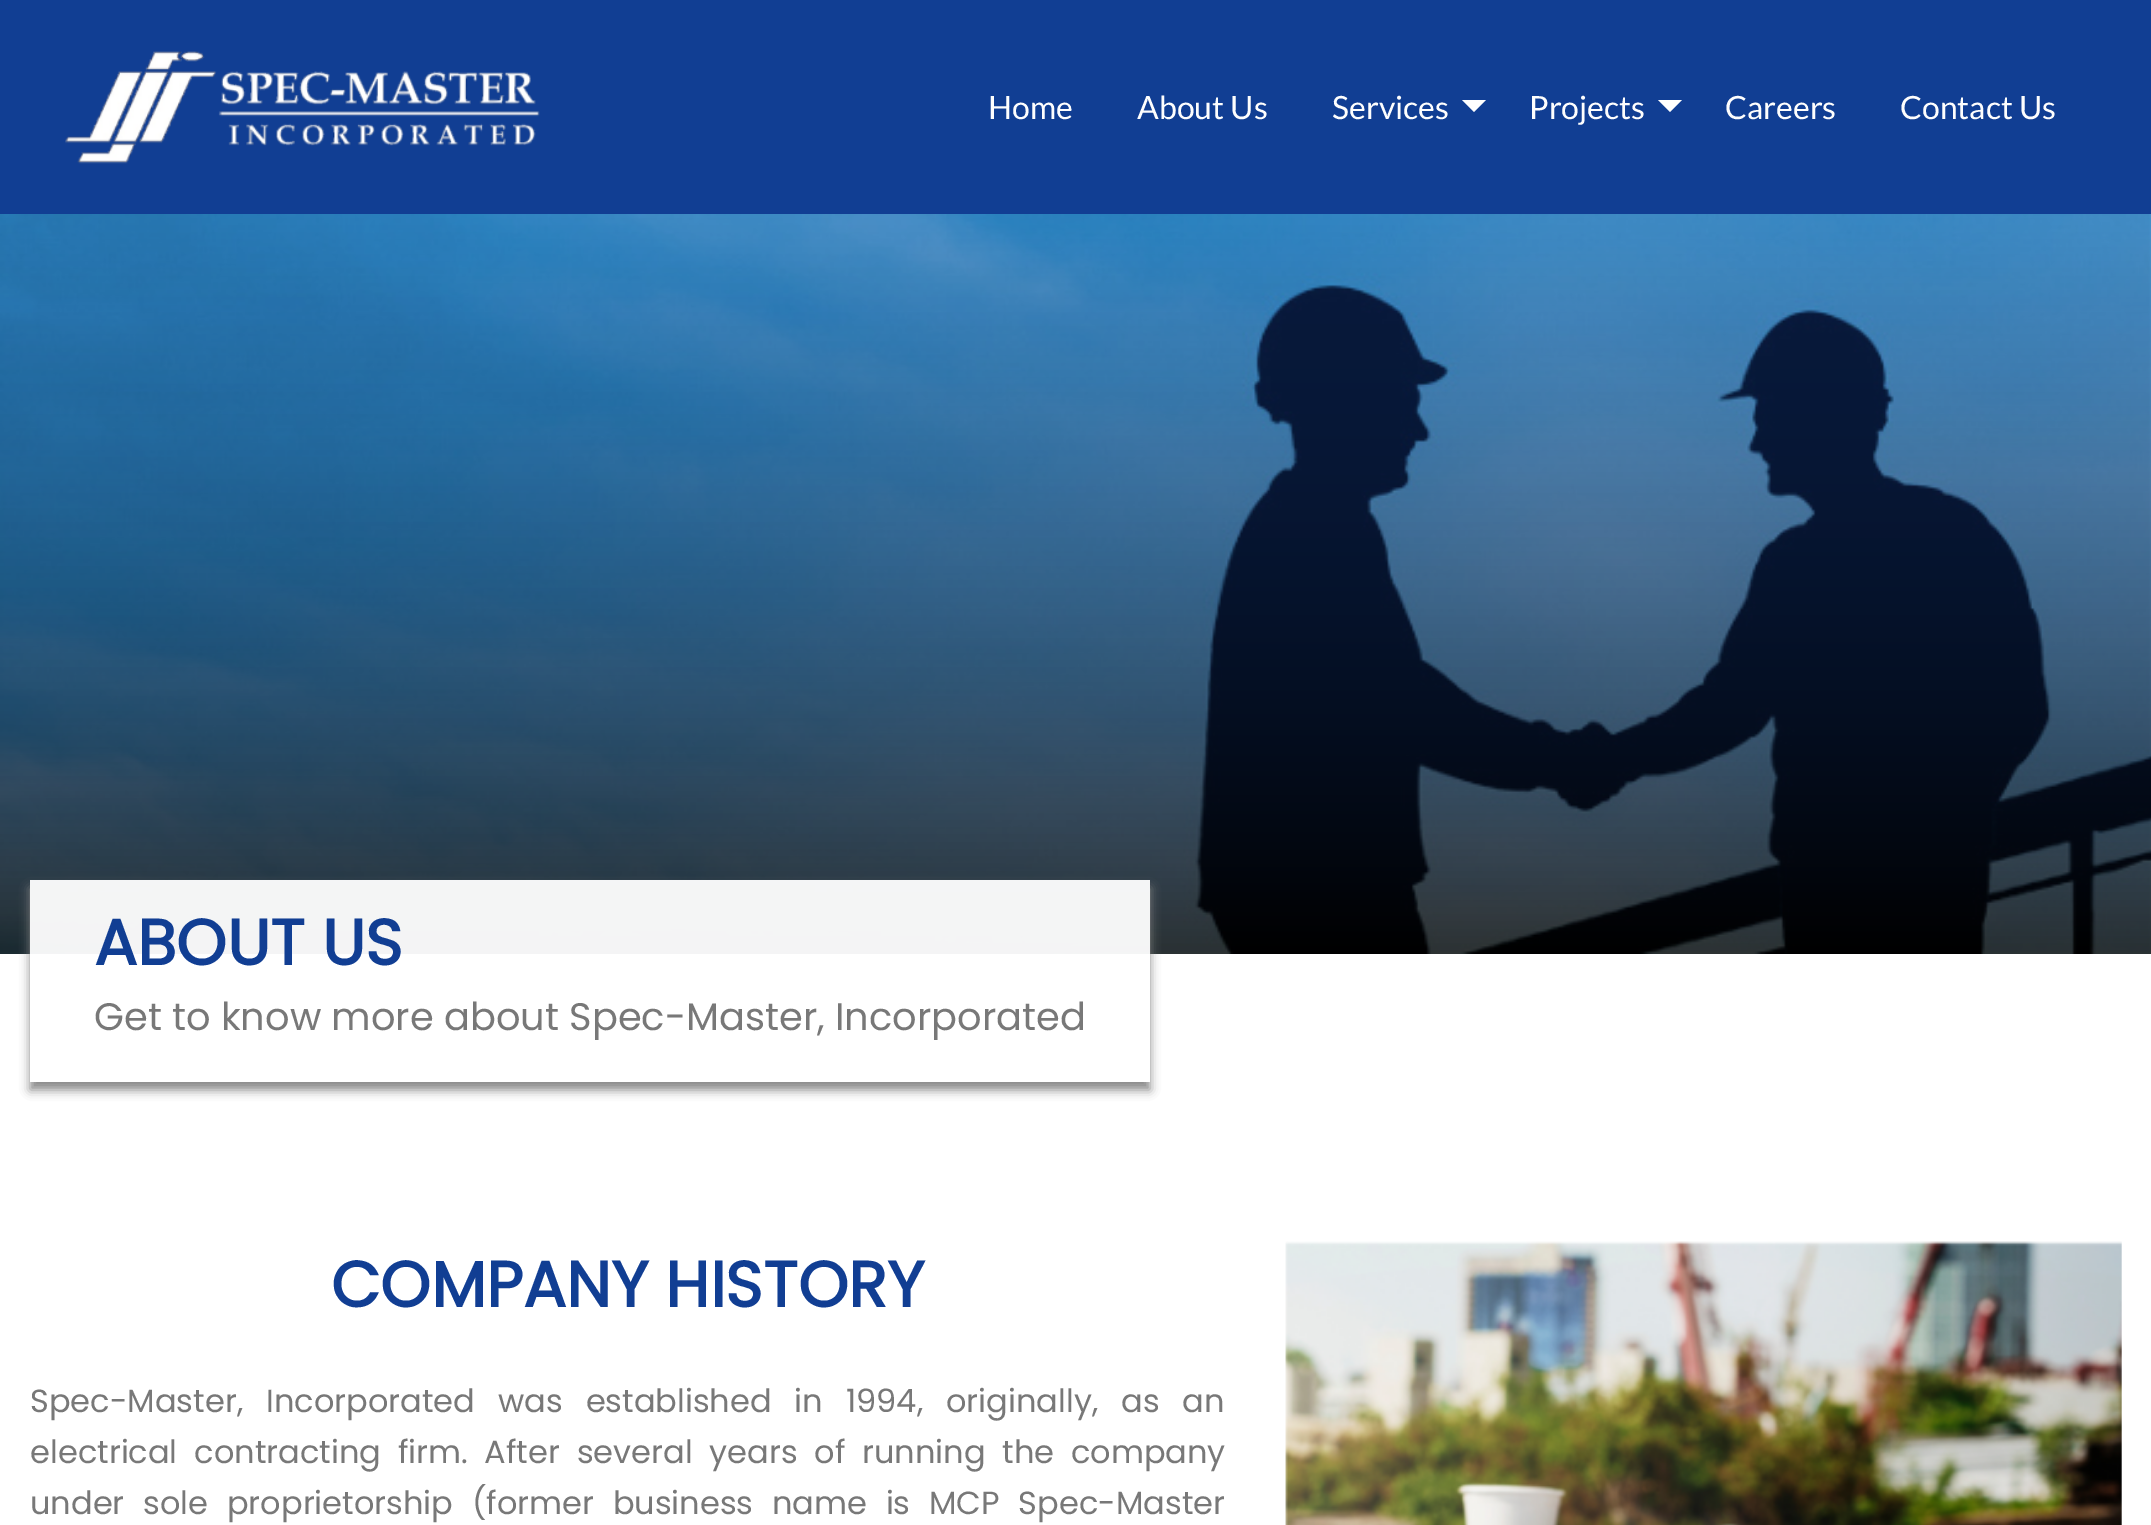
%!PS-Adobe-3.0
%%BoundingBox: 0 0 2151 1525
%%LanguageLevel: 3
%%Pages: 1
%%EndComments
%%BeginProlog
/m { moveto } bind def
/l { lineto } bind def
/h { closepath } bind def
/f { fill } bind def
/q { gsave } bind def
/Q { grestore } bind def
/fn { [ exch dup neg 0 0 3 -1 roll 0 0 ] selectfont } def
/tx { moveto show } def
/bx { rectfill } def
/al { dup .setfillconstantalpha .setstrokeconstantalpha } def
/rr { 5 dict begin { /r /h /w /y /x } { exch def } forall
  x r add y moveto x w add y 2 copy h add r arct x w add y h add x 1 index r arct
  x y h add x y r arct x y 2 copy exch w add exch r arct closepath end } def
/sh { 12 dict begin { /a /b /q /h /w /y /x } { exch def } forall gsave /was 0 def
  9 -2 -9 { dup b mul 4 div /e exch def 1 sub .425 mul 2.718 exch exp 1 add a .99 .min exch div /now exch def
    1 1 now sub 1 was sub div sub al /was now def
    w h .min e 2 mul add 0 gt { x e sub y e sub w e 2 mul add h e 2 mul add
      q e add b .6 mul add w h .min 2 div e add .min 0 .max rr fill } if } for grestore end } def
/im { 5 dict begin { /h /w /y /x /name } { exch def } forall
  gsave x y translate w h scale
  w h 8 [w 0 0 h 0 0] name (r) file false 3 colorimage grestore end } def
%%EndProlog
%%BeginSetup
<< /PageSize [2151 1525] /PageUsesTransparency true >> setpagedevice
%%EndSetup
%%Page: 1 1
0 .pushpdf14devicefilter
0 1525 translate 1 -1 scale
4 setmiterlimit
1 setgray
0 0 2151 1525 bx
0.067 0.243 0.576 setrgbcolor
0 0 2151 214 bx
(image0.raw) 65 51 475 113 im
/Lato-Regular 32 fn
0.996 setgray
(Home) 988 119 tx
(About Us) 1137 119 tx
(Services) 1332 119 tx
1 setgray
1462 100 m 1486 100 l 1474 112 l h f
0.996 setgray
(Projects) 1529 119 tx
1 setgray
1658 100 m 1682 100 l 1670 112 l h f
0.996 setgray
(Careers) 1725 119 tx
(Contact Us) 1900 119 tx
(image1.raw) 0 214 2151 740 im
q
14 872 m 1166 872 l 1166 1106 l 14 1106 l h 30 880 m 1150 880 l 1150 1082 l 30 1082 l h eoclip newpath
0.525 setgray
30 888 1120 202 0 5 1 sh
Q
0.95 al
1 setgray
30 880 1120 74 bx
/Poppins-Bold 64 fn
1 al
0.067 0.243 0.576 setrgbcolor
(ABOUT US) 94 965 tx
/Poppins-Regular 38.4 fn
0.471 setgray
(Get to know more about Spec-Master, Incorporated) 94 1030 tx
/Poppins-Bold 64 fn
0.067 0.243 0.576 setrgbcolor
(COMPANY HISTORY) 331 1307 tx
/Poppins-Regular 32 fn
0.471 setgray
30 1412 m 14.5 0 32 (Spec-Master, Incorporated was established in 1994, originally, as an) widthshow
30 1463 m 8.25 0 32 (electrical contracting firm. After several years of running the company) widthshow
30 1514 m 10.25 0 32 (under sole proprietorship \(former business name is MCP Spec-Master) widthshow
(image2.raw) 1285 1241 837 284 im
.poppdf14devicefilter showpage
%%EOF
